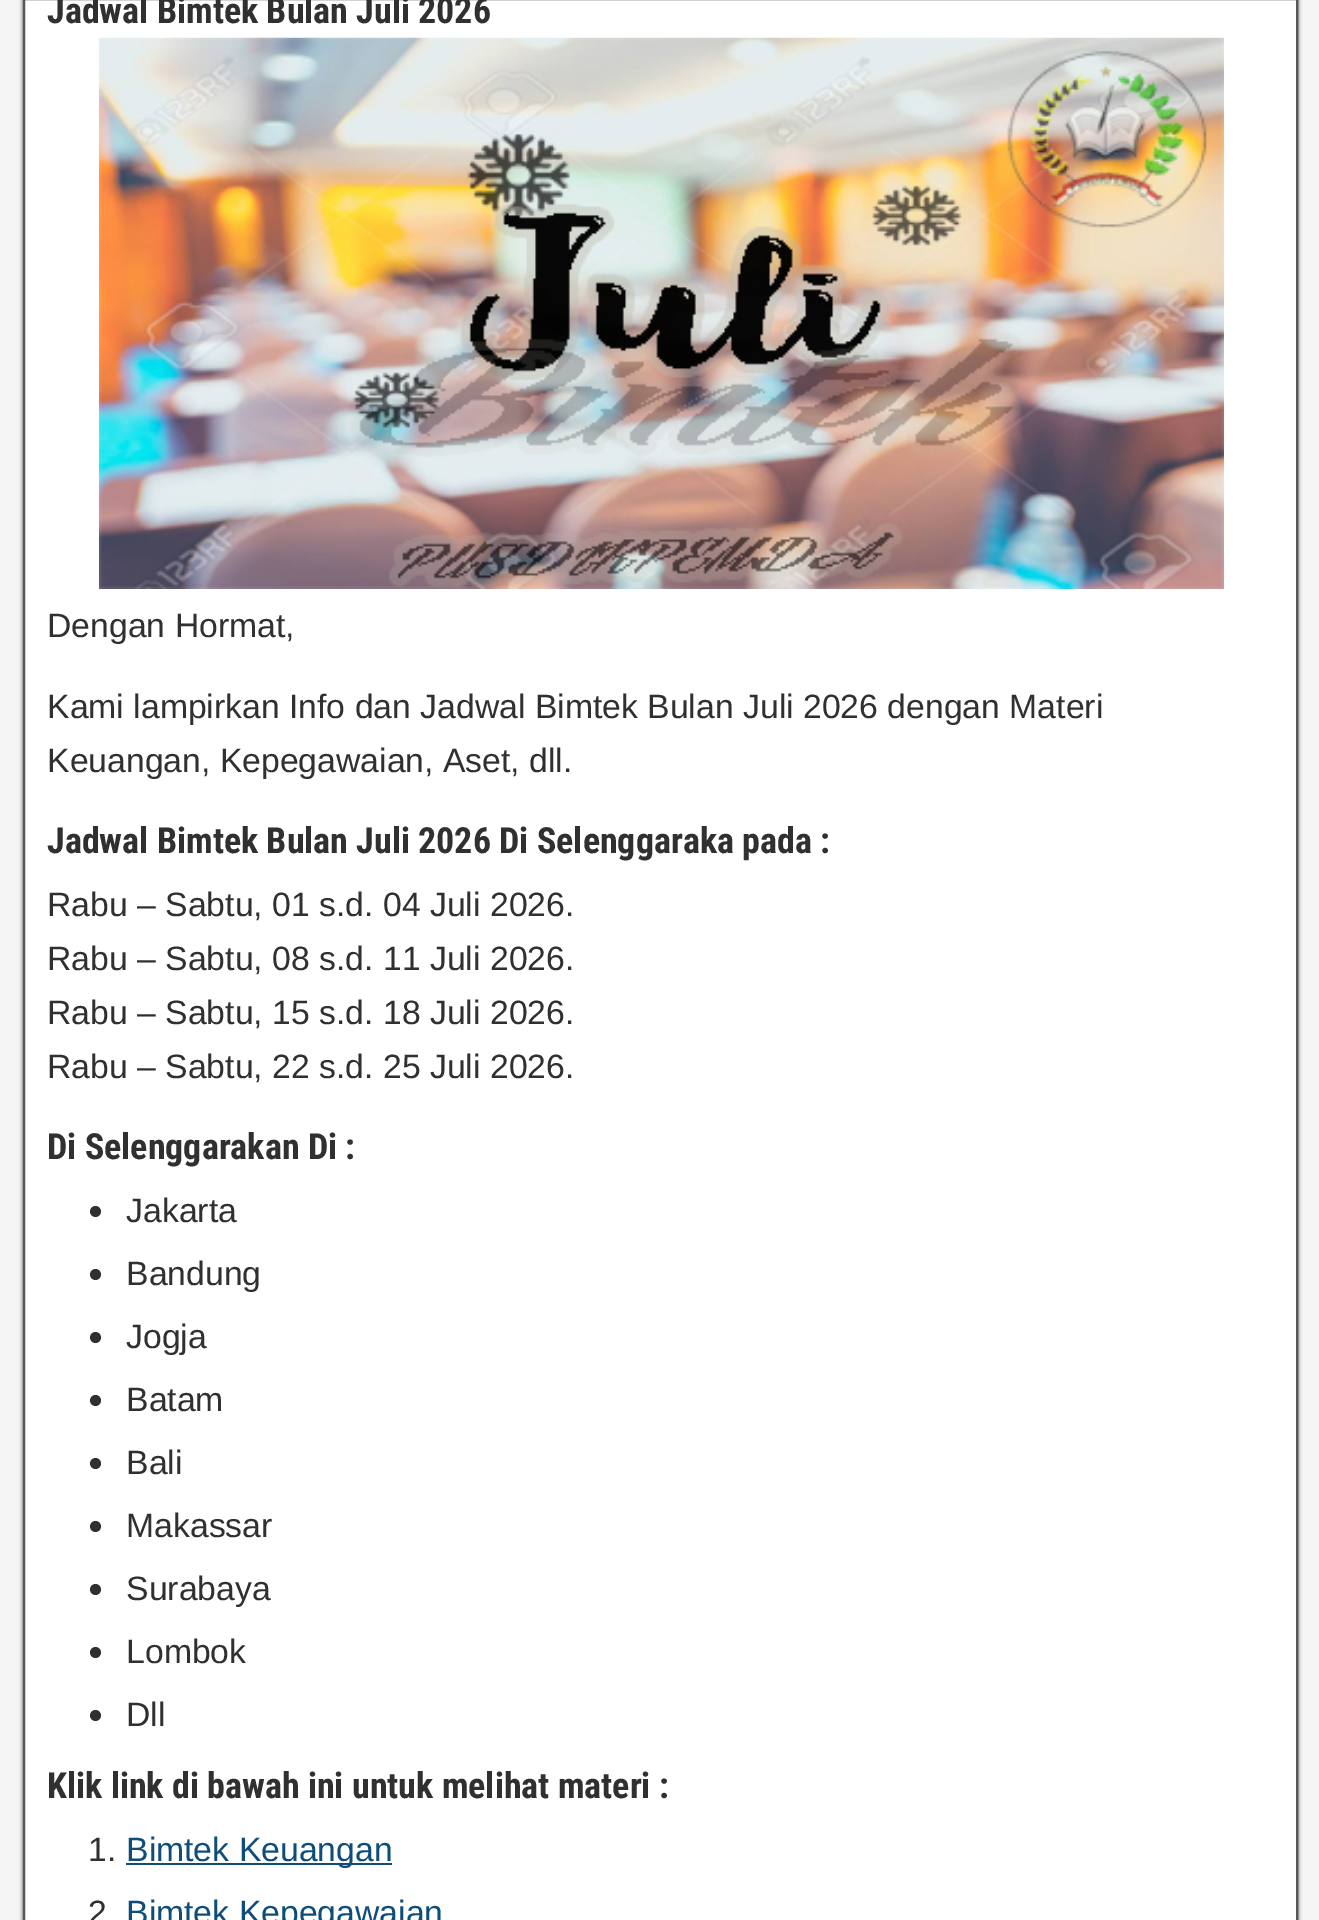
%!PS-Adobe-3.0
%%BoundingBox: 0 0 1319 1920
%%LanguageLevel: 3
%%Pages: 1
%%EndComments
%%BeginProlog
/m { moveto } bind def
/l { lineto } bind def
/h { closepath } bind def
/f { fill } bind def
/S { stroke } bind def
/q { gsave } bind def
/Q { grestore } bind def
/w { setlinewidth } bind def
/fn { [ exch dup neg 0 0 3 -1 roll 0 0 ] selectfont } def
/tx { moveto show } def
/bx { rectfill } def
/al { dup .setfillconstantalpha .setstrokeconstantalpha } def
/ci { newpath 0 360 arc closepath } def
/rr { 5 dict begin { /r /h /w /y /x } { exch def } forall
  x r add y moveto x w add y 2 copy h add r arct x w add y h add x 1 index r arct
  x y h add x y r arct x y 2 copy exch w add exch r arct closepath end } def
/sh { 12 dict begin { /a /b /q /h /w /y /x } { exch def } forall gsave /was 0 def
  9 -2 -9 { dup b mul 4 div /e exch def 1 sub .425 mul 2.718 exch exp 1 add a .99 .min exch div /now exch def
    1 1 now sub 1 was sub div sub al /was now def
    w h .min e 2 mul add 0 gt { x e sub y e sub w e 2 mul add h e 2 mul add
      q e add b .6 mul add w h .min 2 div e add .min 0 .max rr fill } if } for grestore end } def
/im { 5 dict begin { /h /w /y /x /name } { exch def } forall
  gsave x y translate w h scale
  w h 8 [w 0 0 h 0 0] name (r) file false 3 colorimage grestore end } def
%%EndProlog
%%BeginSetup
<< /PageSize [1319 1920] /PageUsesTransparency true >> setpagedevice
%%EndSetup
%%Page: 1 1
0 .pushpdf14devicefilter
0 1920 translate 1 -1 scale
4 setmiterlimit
0.961 setgray
0 0 1319 1920 bx
0.2 setgray
23 -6 1275 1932 0 2 1 sh
1 setgray
24 -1 m 1297 -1 l 1297 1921 l 24 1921 l h q f Q
0.333 setgray
2 w
S
/RobotoCondensed-Bold 36 fn
0.188 setgray
(Jadwal Bimtek Bulan Juli 2026) 47 23 tx
(image0.raw) 99 37 1125 552 im
/Arimo-Regular 33.75 fn
(Dengan Hormat,) 47 637 tx
(Kami lampirkan Info dan Jadwal Bimtek Bulan Juli 2026 dengan Materi) 47 718 tx
(Keuangan, Kepegawaian, Aset, dll.) 47 772 tx
/RobotoCondensed-Bold 36 fn
(Jadwal Bimtek Bulan Juli 2026 Di Selenggaraka pada :) 47 853 tx
/Arimo-Regular 33.75 fn
(Rabu – Sabtu, 01 s.d. 04 Juli 2026.) 47 916 tx
(Rabu – Sabtu, 08 s.d. 11 Juli 2026.) 47 970 tx
(Rabu – Sabtu, 15 s.d. 18 Juli 2026.) 47 1024 tx
(Rabu – Sabtu, 22 s.d. 25 Juli 2026.) 47 1078 tx
/RobotoCondensed-Bold 36 fn
(Di Selenggarakan Di :) 47 1159 tx
95.5 1211.5 5.5 ci f
/Arimo-Regular 33.75 fn
(Jakarta) 126 1222 tx
95.5 1274.5 5.5 ci f
(Bandung) 126 1285 tx
95.5 1337.5 5.5 ci f
(Jogja) 126 1348 tx
95.5 1400.5 5.5 ci f
(Batam) 126 1411 tx
95.5 1463.5 5.5 ci f
(Bali) 126 1474 tx
95.5 1526.5 5.5 ci f
(Makassar) 126 1537 tx
95.5 1589.5 5.5 ci f
(Surabaya) 126 1600 tx
95.5 1652.5 5.5 ci f
(Lombok) 126 1663 tx
95.5 1715.5 5.5 ci f
(Dll) 126 1726 tx
/RobotoCondensed-Bold 36 fn
(Klik link di bawah ini untuk melihat materi :) 47 1798 tx
/Arimo-Regular 33.75 fn
(1.) 88 1861 tx
0.055 0.302 0.478 setrgbcolor
126 1863 266 2 bx
(Bimtek Keuangan) 126 1861 tx
0.188 setgray
(2) 88 1924 tx
0.055 0.302 0.478 setrgbcolor
(Bimtek Kepegawaian) 126 1924 tx
.poppdf14devicefilter showpage
%%EOF
